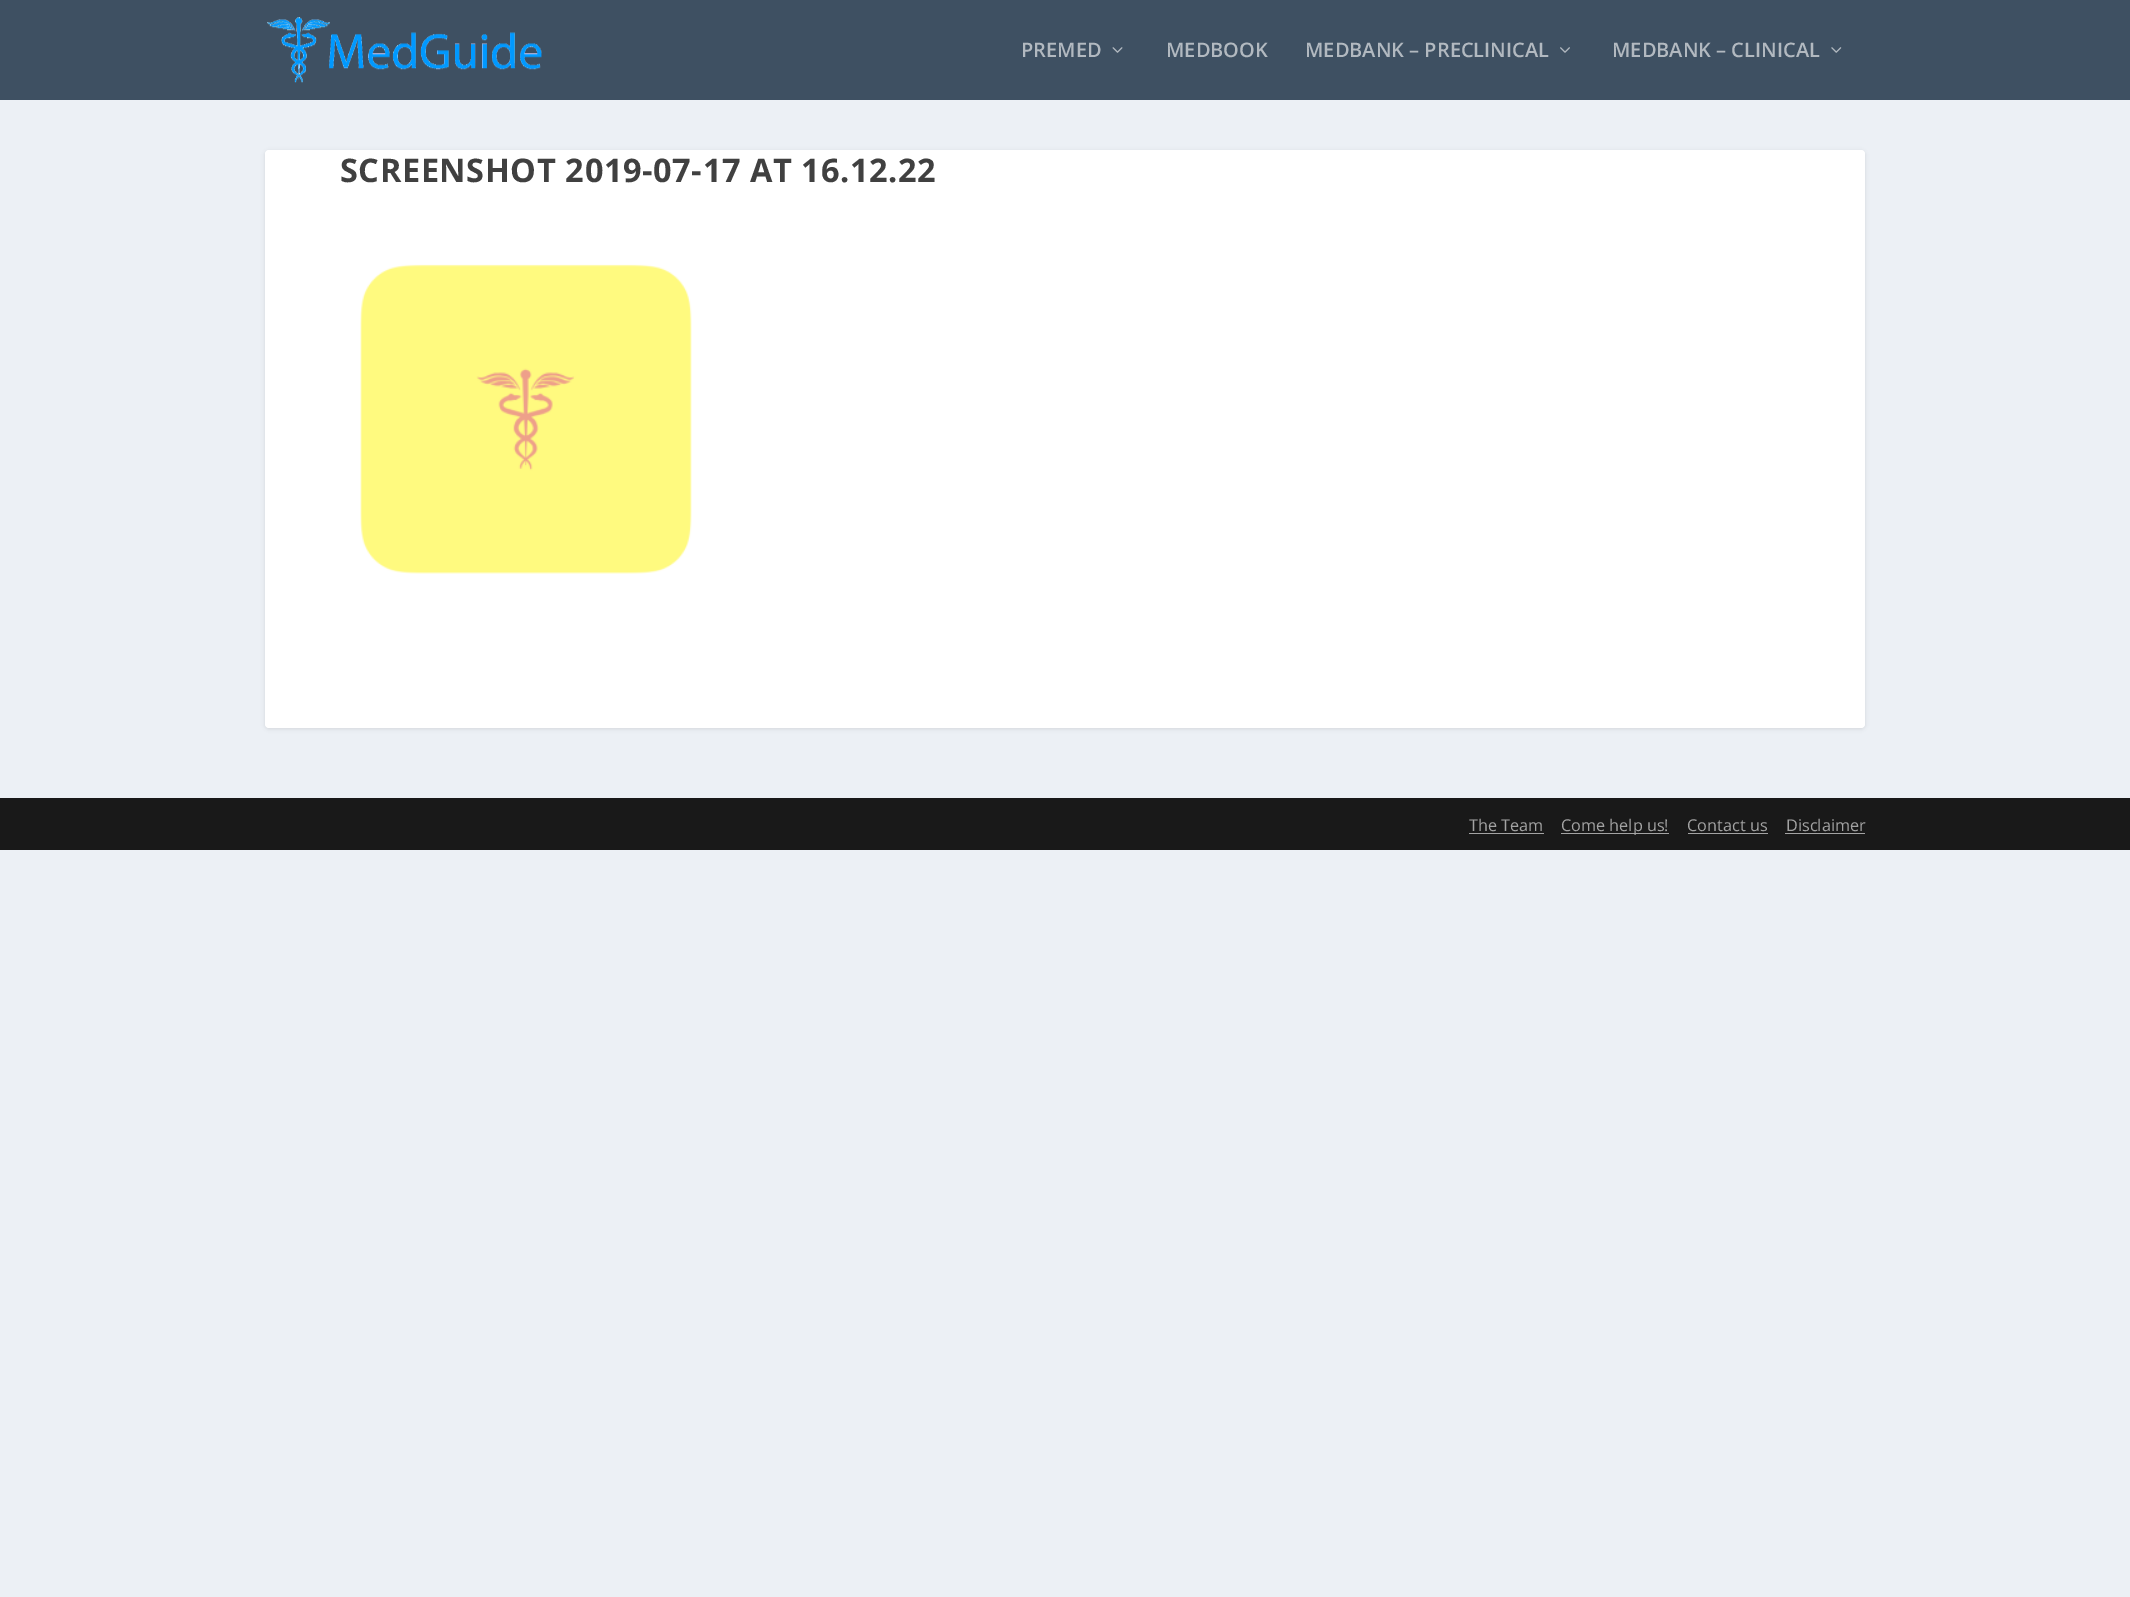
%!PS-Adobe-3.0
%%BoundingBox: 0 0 2130 1597
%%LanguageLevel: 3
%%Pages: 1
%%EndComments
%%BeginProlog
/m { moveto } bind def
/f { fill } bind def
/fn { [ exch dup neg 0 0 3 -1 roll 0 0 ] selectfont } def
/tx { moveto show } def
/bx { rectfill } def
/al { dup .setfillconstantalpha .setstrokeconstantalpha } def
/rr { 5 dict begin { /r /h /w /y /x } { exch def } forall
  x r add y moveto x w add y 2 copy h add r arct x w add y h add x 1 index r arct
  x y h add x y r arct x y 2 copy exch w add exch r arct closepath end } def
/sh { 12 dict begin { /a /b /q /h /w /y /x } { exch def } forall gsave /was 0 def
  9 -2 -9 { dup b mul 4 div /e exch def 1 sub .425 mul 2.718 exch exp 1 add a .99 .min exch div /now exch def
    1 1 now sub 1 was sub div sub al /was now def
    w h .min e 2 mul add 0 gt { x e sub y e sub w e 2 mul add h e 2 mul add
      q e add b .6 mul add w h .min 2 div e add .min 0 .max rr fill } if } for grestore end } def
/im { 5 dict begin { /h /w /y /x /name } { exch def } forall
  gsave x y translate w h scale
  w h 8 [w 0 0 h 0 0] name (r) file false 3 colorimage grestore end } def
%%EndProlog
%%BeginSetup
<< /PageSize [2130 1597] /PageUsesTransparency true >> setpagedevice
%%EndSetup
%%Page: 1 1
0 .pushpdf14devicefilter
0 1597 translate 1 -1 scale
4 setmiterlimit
0.925 0.941 0.961 setrgbcolor
0 0 2130 1597 bx
0.243 0.314 0.384 setrgbcolor
0 0 2130 100 bx
(image0.raw) 267 17 275 66 im
/OpenSans-SemiBold 20 fn
0.698 0.725 0.753 setrgbcolor
(PREMED) 1021 57 tx
(image1.raw) 1112 47 11 6 im
(MEDBOOK) 1166 57 tx
(MEDBANK – PRECLINICAL) 1305 57 tx
(image2.raw) 1560 47 10 6 im
(MEDBANK – CLINICAL) 1612 57 tx
(image3.raw) 1831 47 11 6 im
0 setgray
265 151 1600 578 4 2 0.1 sh
1 setgray
265 150 1600 578 4 rr f
/OpenSans-Bold 32.5 fn
0.251 setgray
340 182 m 0.6 0 (SCREENSHOT 2019-07-17 AT 16.12.22) ashow
(image4.raw) 360 264 332 310 im
0.098 setgray
0 798 2130 52 bx
/OpenSans-Regular 16.25 fn
0.639 setgray
(The Team) 1469 831 tx
1469 833 75 1 bx
1561 833 108 1 bx
(Come help us!) 1561 831 tx
(Contact us) 1687 831 tx
1688 833 80 1 bx
(Disclaimer) 1786 831 tx
1785 833 80 1 bx
.poppdf14devicefilter showpage
%%EOF
